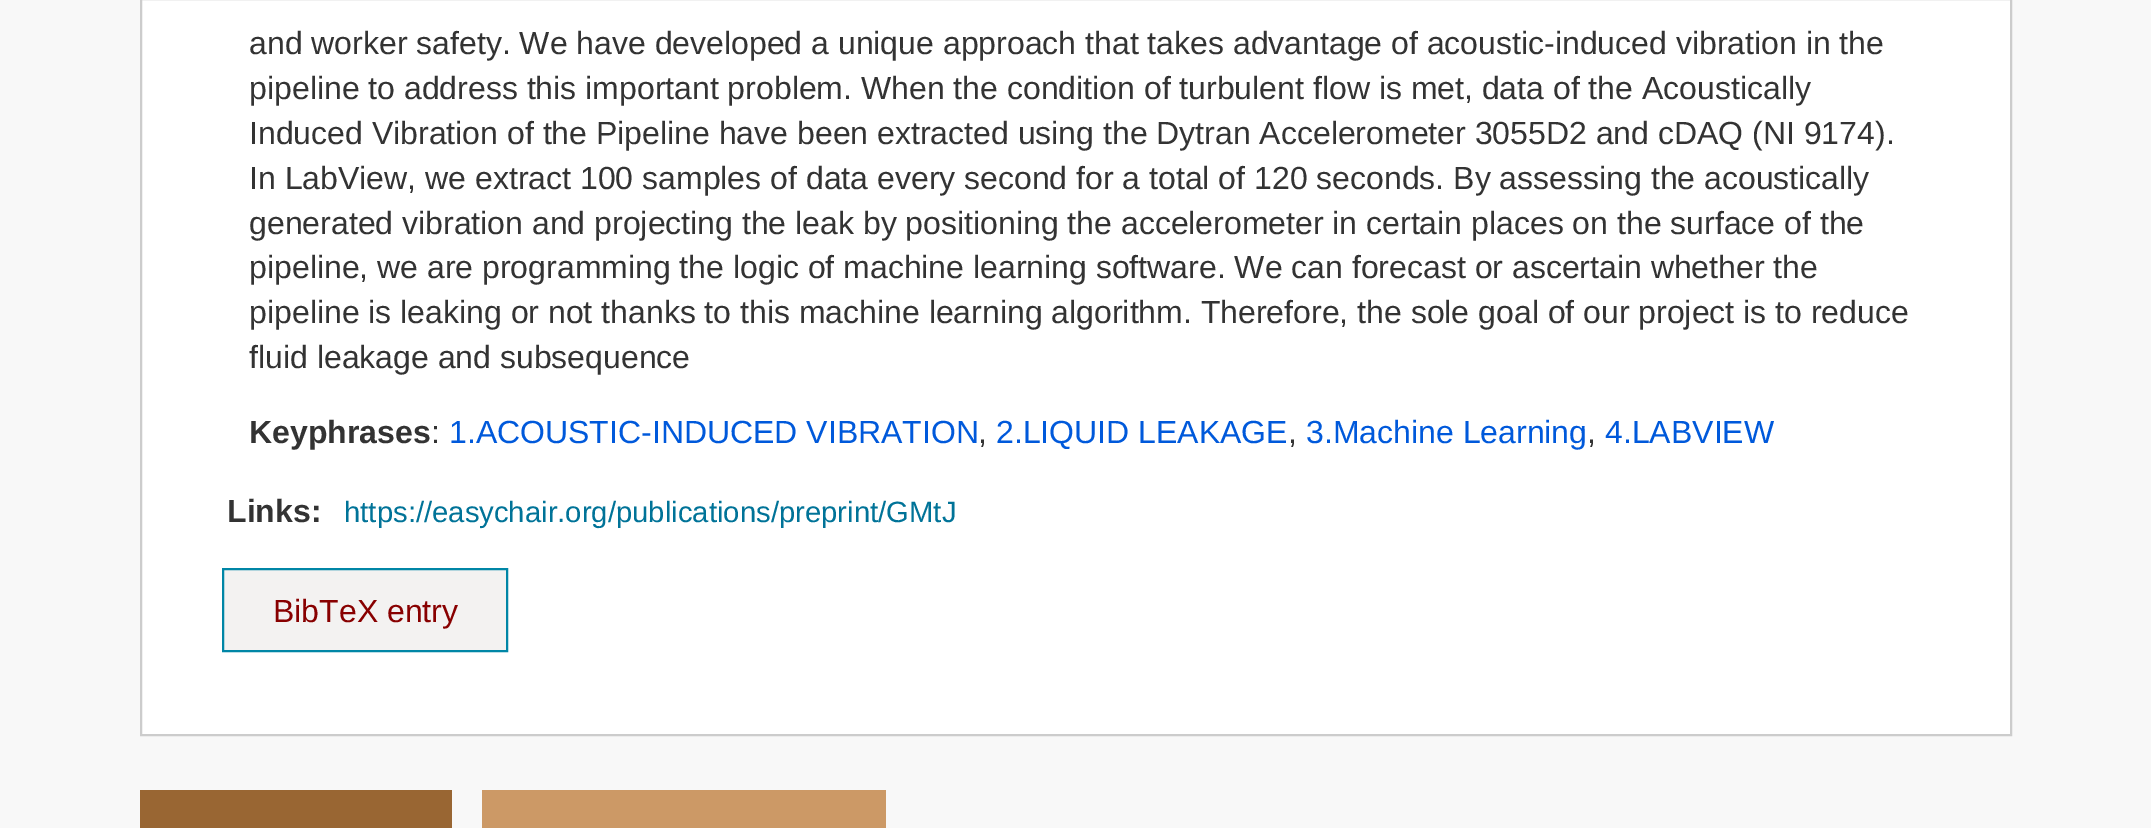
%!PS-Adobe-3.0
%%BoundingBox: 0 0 2151 828
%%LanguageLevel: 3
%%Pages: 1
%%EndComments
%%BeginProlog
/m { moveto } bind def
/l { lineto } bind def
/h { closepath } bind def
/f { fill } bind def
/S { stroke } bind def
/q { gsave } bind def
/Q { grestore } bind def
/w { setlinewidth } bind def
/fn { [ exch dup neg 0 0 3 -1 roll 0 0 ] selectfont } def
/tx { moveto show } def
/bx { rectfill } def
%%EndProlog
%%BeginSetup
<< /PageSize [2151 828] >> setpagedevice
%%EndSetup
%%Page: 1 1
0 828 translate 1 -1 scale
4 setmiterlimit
0.973 setgray
0 0 2151 828 bx
1 setgray
141 -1 m 2011 -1 l 2011 735 l 141 735 l h q f Q
0.8 setgray
2 w
S
/LiberationSans-Regular 32 fn
0.2 setgray
(and worker safety. We have developed a unique approach that takes advantage of acoustic-induced vibration in the) 249 54 tx
(pipeline to address this important problem. When the condition of turbulent flow is met, data of the Acoustically) 249 99 tx
(Induced Vibration of the Pipeline have been extracted using the Dytran Accelerometer 3055D2 and cDAQ \(NI 9174\).) 249 144 tx
(In LabView, we extract 100 samples of data every second for a total of 120 seconds. By assessing the acoustically) 249 189 tx
(generated vibration and projecting the leak by positioning the accelerometer in certain places on the surface of the) 249 234 tx
(pipeline, we are programming the logic of machine learning software. We can forecast or ascertain whether the) 249 278 tx
(pipeline is leaking or not thanks to this machine learning algorithm. Therefore, the sole goal of our project is to reduce) 249 323 tx
(fluid leakage and subsequence) 249 368 tx
/LiberationSans-Bold 32 fn
(Keyphrases) 249 443 tx
/LiberationSans-Regular 32 fn
(:) 431 443 tx
0 0.349 0.859 setrgbcolor
(1.ACOUSTIC-INDUCED VIBRATION) 449 443 tx
0.2 setgray
(,) 978 443 tx
0 0.349 0.859 setrgbcolor
(2.LIQUID LEAKAGE) 996 443 tx
0.2 setgray
(,) 1288 443 tx
0 0.349 0.859 setrgbcolor
(3.Machine Learning) 1306 443 tx
0.2 setgray
(,) 1587 443 tx
0 0.349 0.859 setrgbcolor
(4.LABVIEW) 1605 443 tx
/LiberationSans-Bold 32 fn
0.2 setgray
(Links:) 227 522 tx
/LiberationSans-Regular 29.3 fn
0 0.451 0.596 setrgbcolor
(https://easychair.org/publications/preprint/GMtJ) 344 522 tx
0.953 0.949 0.945 setrgbcolor
223 569 m 507 569 l 507 651 l 223 651 l h q f Q
0 0.525 0.651 setrgbcolor
S
/LiberationSans-Regular 32 fn
0.533 0 0 setrgbcolor
(BibTeX entry) 273 622 tx
0.6 0.4 0.2 setrgbcolor
140 790 312 38 bx
0.8 0.6 0.4 setrgbcolor
482 790 404 38 bx
showpage
%%EOF
